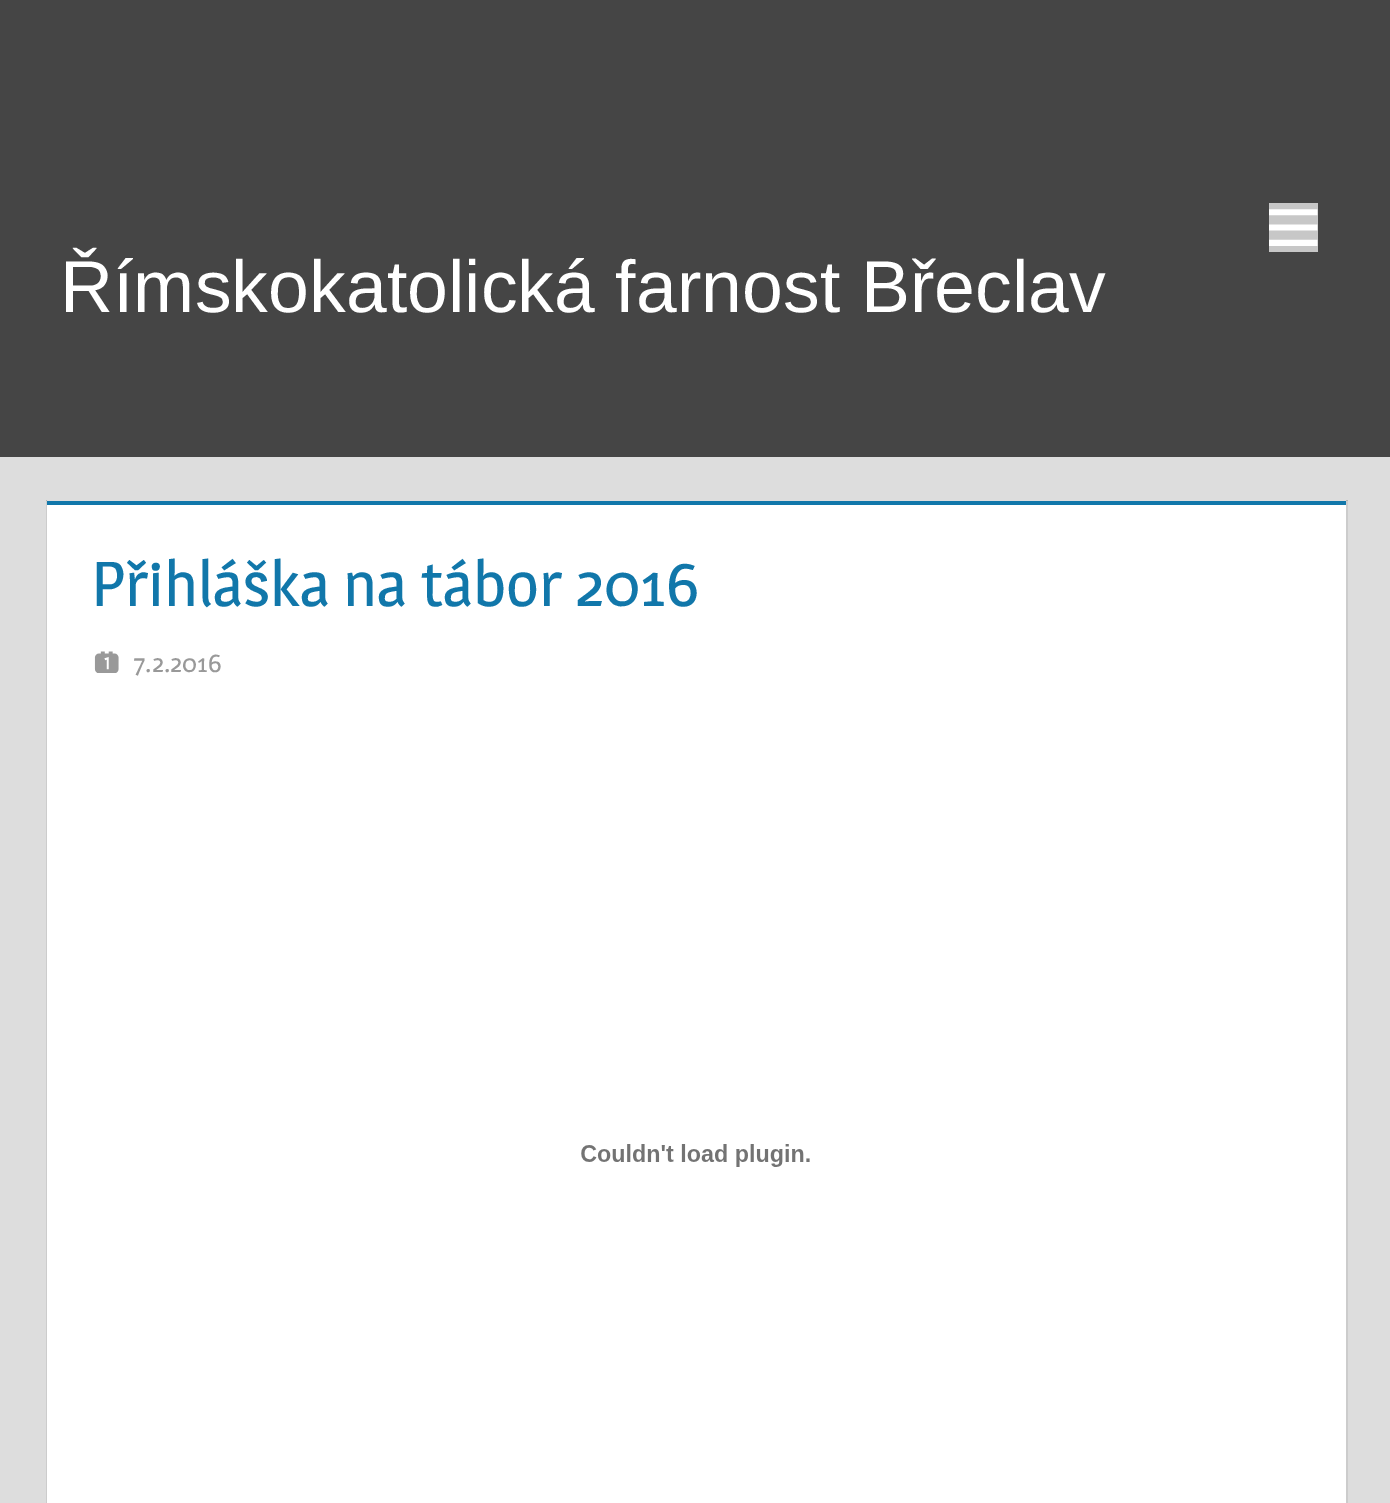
%!PS-Adobe-3.0
%%BoundingBox: 0 0 1390 1503
%%LanguageLevel: 3
%%Pages: 1
%%EndComments
%%BeginProlog
/m { moveto } bind def
/l { lineto } bind def
/h { closepath } bind def
/f { fill } bind def
/fn { [ exch dup neg 0 0 3 -1 roll 0 0 ] selectfont } def
/tx { moveto show } def
/bx { rectfill } def
/al { dup .setfillconstantalpha .setstrokeconstantalpha } def
/im { 5 dict begin { /h /w /y /x /name } { exch def } forall
  gsave x y translate w h scale
  w h 8 [w 0 0 h 0 0] name (r) file false 3 colorimage grestore end } def
%%EndProlog
%%BeginSetup
<< /PageSize [1390 1503] /PageUsesTransparency true >> setpagedevice
%%EndSetup
%%Page: 1 1
0 .pushpdf14devicefilter
0 1503 translate 1 -1 scale
4 setmiterlimit
0.867 setgray
0 0 1390 1503 bx
0.271 setgray
0 0 1390 457 bx
0.78 setgray
1269 203 49 49 bx
(image0.raw) 1269 209 49 37 im
/LiberationSans-Regular 73.5 fn
1 setgray
(Římskokatolická farnost Břeclav) 60 312 tx
46 501 1302 1002 bx
0.067 0.467 0.667 setrgbcolor
47 501 1299 4 bx
0.2 al
0 setgray
1348 500 m 1348 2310 l 1346 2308 l 1346 500 l h f
46 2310 m 46 500 l 47 500 l 47 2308 l h f
/Magra-Regular 63 fn
1 al
0.067 0.467 0.667 setrgbcolor
(Přihláška na tábor 2016) 91 606 tx
(image1.raw) 94 651 25 22 im
/Magra-Regular 26 fn
0.6 setgray
(7.2.2016) 133 672 tx
(image2.raw) 581 1144 229 23 im
.poppdf14devicefilter showpage
%%EOF
